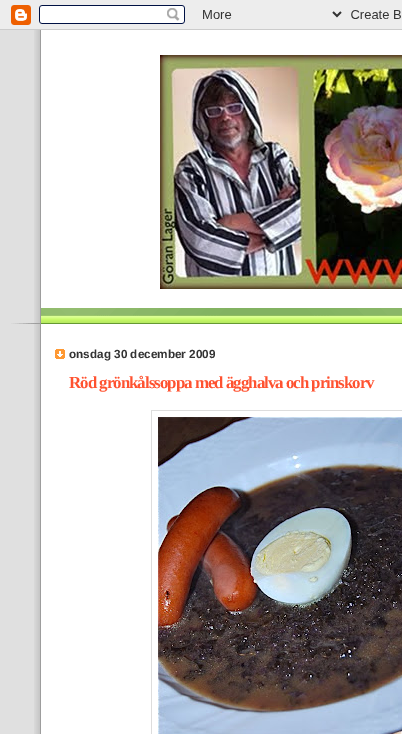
%!PS-Adobe-3.0
%%BoundingBox: 0 0 402 734
%%LanguageLevel: 3
%%Pages: 1
%%EndComments
%%BeginProlog
/m { moveto } bind def
/fn { [ exch dup neg 0 0 3 -1 roll 0 0 ] selectfont } def
/tx { moveto show } def
/bx { rectfill } def
/im { 5 dict begin { /h /w /y /x /name } { exch def } forall
  gsave x y translate w h scale
  w h 8 [w 0 0 h 0 0] name (r) file false 3 colorimage grestore end } def
%%EndProlog
%%BeginSetup
<< /PageSize [402 734] >> setpagedevice
%%EndSetup
%%Page: 1 1
0 734 translate 1 -1 scale
4 setmiterlimit
0.878 setgray
0 0 402 734 bx
(image0.raw) 0 0 402 30 im
(image1.raw) 34 30 368 704 im
(image2.raw) 11 308 391 16 im
(image3.raw) 160 55 242 234 im
(image4.raw) 55 349 10 10 im
/LiberationSans-Bold 11.75 fn
0.2 setgray
(onsdag 30 december 2009) 69 358 tx
/LiberationSerif-Bold 16.9 fn
1 0.322 0.188 setrgbcolor
69 388 m -1 0 (Röd grönkålssoppa med ägghalva och prinskorv) ashow
0.867 setgray
151 410 251 1 bx
151 410 1 324 bx
(image5.raw) 158 417 244 317 im
showpage
%%EOF
